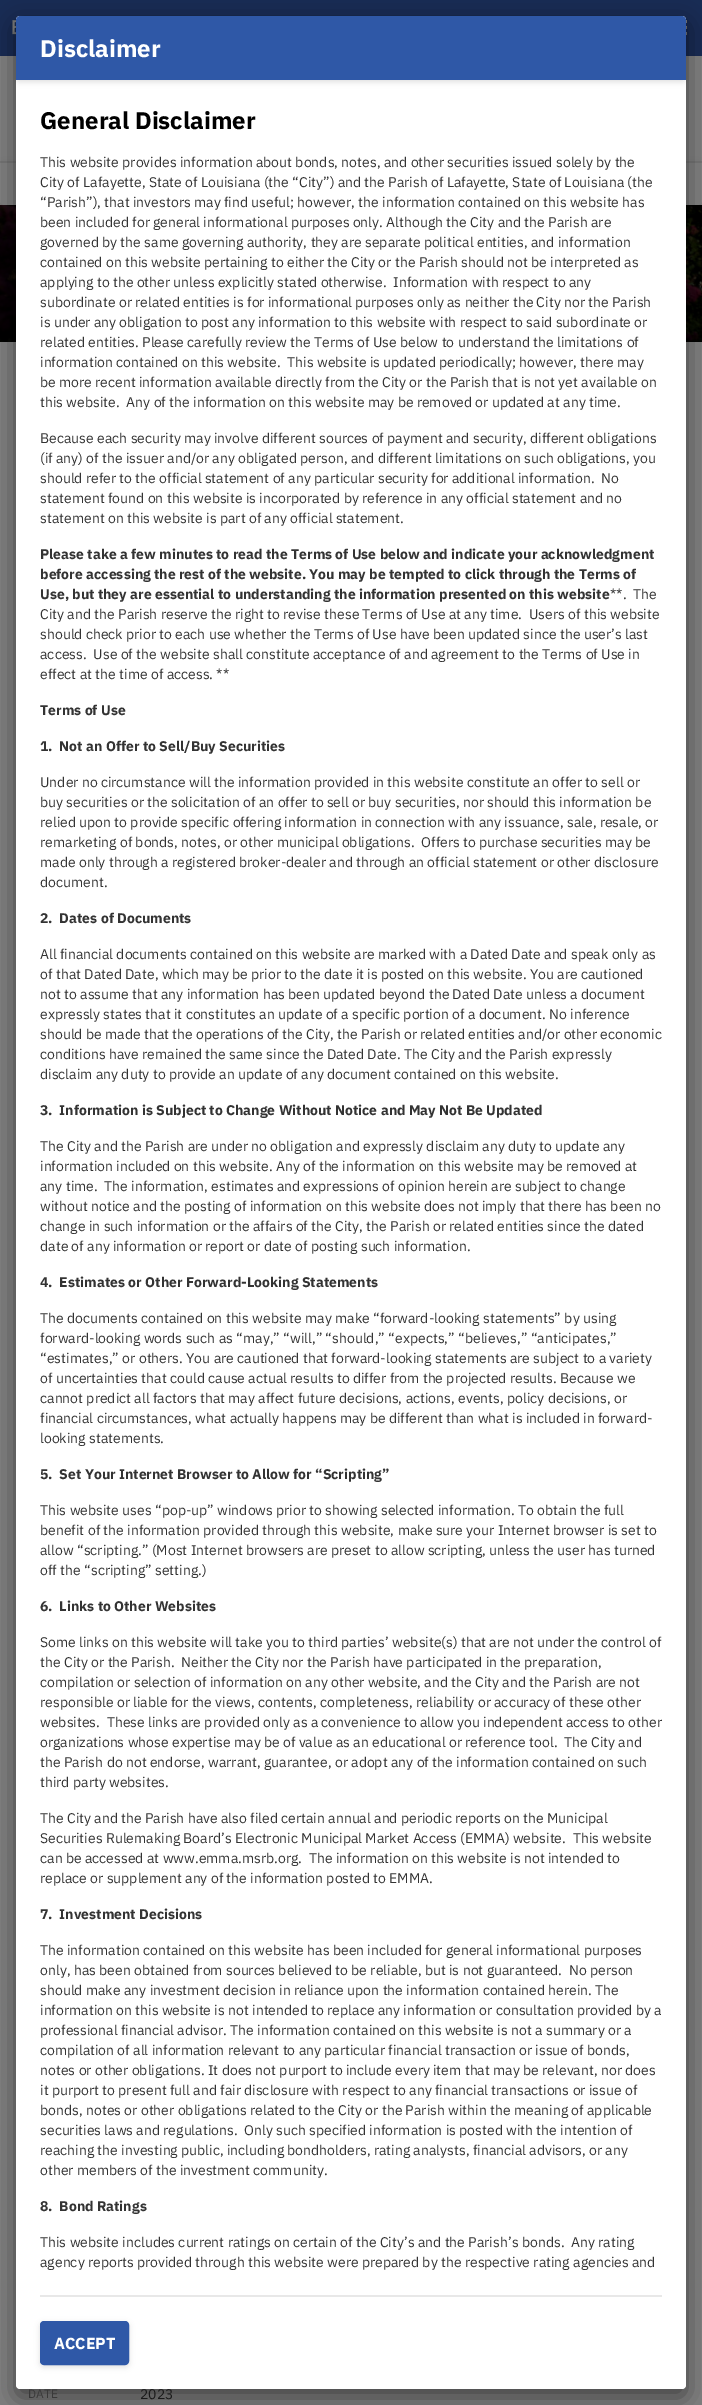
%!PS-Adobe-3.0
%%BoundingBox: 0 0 702 2405
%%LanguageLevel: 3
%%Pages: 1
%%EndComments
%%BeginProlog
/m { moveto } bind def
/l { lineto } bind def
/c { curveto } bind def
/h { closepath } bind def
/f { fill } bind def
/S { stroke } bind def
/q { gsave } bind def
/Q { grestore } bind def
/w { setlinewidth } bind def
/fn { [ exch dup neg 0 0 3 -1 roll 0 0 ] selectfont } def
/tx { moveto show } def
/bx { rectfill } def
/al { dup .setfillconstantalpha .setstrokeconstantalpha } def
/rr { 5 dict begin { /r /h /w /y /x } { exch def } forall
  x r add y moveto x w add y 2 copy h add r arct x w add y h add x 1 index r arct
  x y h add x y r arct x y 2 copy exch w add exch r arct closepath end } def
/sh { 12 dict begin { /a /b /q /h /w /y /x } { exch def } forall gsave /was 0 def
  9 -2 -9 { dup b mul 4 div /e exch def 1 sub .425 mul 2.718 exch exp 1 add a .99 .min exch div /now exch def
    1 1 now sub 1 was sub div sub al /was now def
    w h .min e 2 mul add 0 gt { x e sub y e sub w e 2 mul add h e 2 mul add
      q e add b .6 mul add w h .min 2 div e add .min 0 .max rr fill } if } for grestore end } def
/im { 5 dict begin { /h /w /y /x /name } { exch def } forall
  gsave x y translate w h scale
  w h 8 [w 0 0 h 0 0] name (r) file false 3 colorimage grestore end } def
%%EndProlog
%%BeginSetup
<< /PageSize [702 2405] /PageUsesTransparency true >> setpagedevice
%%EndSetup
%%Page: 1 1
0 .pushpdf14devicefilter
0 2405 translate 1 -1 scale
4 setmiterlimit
0.502 setgray
0 0 702 2405 bx
0.094 0.173 0.329 setrgbcolor
0 0 702 56 bx
(image0.raw) 12 20 4 15 im
0.502 setgray
670 20 17 3 0.5 rr f
670 26 17 3 0.5 rr f
670 32 17 3 0.5 rr f
(image1.raw) 0 205 702 137 im
0 setgray
0 58 702 149 0 3 0.12 sh
0.502 setgray
0 56 702 149 bx
0 setgray
0 163 702 44 4 3 0.12 sh
0.502 setgray
0 163 m 702 163 l 702 201 l 702 203 700 205 698 205 c 4 205 l 2 205 0 203 0 201 c h f
0.455 setgray
0 161 702 2 bx
0 setgray
16 24 670 2373 4 12 0.48 sh
1 setgray
16 16 670 2373 4 rr f
0 setgray
16 18 670 64 4 3 0.12 sh
0.184 0.345 0.655 setrgbcolor
20 16 m 682 16 l 684 16 686 18 686 20 c 686 80 l 16 80 l 16 20 l 16 18 18 16 20 16 c h f
/IBMPlexSans-Bold 24 fn
1 setgray
(Disclaimer) 40 57 tx
0 setgray
(General Disclaimer) 40 129 tx
/IBMPlexSans-Regular 14 fn
0.2 setgray
(This website provides information about bonds, notes, and other securities issued solely by the) 40 167 tx
(City of Lafayette, State of Louisiana \(the “City”\) and the Parish of Lafayette, State of Louisiana \(the) 40 187 tx
(“Parish”\), that investors may find useful; however, the information contained on this website has) 40 207 tx
(been included for general informational purposes only. Although the City and the Parish are) 40 227 tx
(governed by the same governing authority, they are separate political entities, and information) 40 247 tx
(contained on this website pertaining to either the City or the Parish should not be interpreted as) 40 267 tx
(applying to the other unless explicitly stated otherwise.  Information with respect to any) 40 287 tx
(subordinate or related entities is for informational purposes only as neither the City nor the Parish) 40 307 tx
(is under any obligation to post any information to this website with respect to said subordinate or) 40 327 tx
(related entities. Please carefully review the Terms of Use below to understand the limitations of) 40 347 tx
(information contained on this website.  This website is updated periodically; however, there may) 40 367 tx
(be more recent information available directly from the City or the Parish that is not yet available on) 40 387 tx
(this website.  Any of the information on this website may be removed or updated at any time.) 40 407 tx
(Because each security may involve different sources of payment and security, different obligations) 40 443 tx
(\(if any\) of the issuer and/or any obligated person, and different limitations on such obligations, you) 40 463 tx
(should refer to the official statement of any particular security for additional information.  No) 40 483 tx
(statement found on this website is incorporated by reference in any official statement and no) 40 503 tx
(statement on this website is part of any official statement.) 40 523 tx
/IBMPlexSans-Bold 14 fn
(Please take a few minutes to read the Terms of Use below and indicate your acknowledgment) 40 559 tx
(before accessing the rest of the website. You may be tempted to click through the Terms of) 40 579 tx
(Use, but they are essential to understanding the information presented on this website) 40 599 tx
/IBMPlexSans-Regular 14 fn
(**.  The) 610 599 tx
(City and the Parish reserve the right to revise these Terms of Use at any time.  Users of this website) 40 619 tx
(should check prior to each use whether the Terms of Use have been updated since the user’s last) 40 639 tx
(access.  Use of the website shall constitute acceptance of and agreement to the Terms of Use in) 40 659 tx
(effect at the time of access. **) 40 679 tx
/IBMPlexSans-Bold 14 fn
(Terms of Use) 40 715 tx
(1.  Not an Offer to Sell/Buy Securities) 40 751 tx
/IBMPlexSans-Regular 14 fn
(Under no circumstance will the information provided in this website constitute an offer to sell or) 40 787 tx
(buy securities or the solicitation of an offer to sell or buy securities, nor should this information be) 40 807 tx
(relied upon to provide specific offering information in connection with any issuance, sale, resale, or) 40 827 tx
(remarketing of bonds, notes, or other municipal obligations.  Offers to purchase securities may be) 40 847 tx
(made only through a registered broker-dealer and through an official statement or other disclosure) 40 867 tx
(document.) 40 887 tx
/IBMPlexSans-Bold 14 fn
(2.  Dates of Documents) 40 923 tx
/IBMPlexSans-Regular 14 fn
(All financial documents contained on this website are marked with a Dated Date and speak only as) 40 959 tx
(of that Dated Date, which may be prior to the date it is posted on this website. You are cautioned) 40 979 tx
(not to assume that any information has been updated beyond the Dated Date unless a document) 40 999 tx
(expressly states that it constitutes an update of a specific portion of a document. No inference) 40 1019 tx
(should be made that the operations of the City, the Parish or related entities and/or other economic) 40 1039 tx
(conditions have remained the same since the Dated Date. The City and the Parish expressly) 40 1059 tx
(disclaim any duty to provide an update of any document contained on this website.) 40 1079 tx
/IBMPlexSans-Bold 14 fn
(3.  Information is Subject to Change Without Notice and May Not Be Updated) 40 1115 tx
/IBMPlexSans-Regular 14 fn
(The City and the Parish are under no obligation and expressly disclaim any duty to update any) 40 1151 tx
(information included on this website. Any of the information on this website may be removed at) 40 1171 tx
(any time.  The information, estimates and expressions of opinion herein are subject to change) 40 1191 tx
(without notice and the posting of information on this website does not imply that there has been no) 40 1211 tx
(change in such information or the affairs of the City, the Parish or related entities since the dated) 40 1231 tx
(date of any information or report or date of posting such information.) 40 1251 tx
/IBMPlexSans-Bold 14 fn
(4.  Estimates or Other Forward-Looking Statements) 40 1287 tx
/IBMPlexSans-Regular 14 fn
(The documents contained on this website may make “forward-looking statements” by using) 40 1323 tx
(forward-looking words such as “may,” “will,” “should,” “expects,” “believes,” “anticipates,”) 40 1343 tx
(“estimates,” or others. You are cautioned that forward-looking statements are subject to a variety) 40 1363 tx
(of uncertainties that could cause actual results to differ from the projected results. Because we) 40 1383 tx
(cannot predict all factors that may affect future decisions, actions, events, policy decisions, or) 40 1403 tx
(financial circumstances, what actually happens may be different than what is included in forward-) 40 1423 tx
(looking statements.) 40 1443 tx
/IBMPlexSans-Bold 14 fn
(5.  Set Your Internet Browser to Allow for “Scripting”) 40 1479 tx
/IBMPlexSans-Regular 14 fn
(This website uses “pop-up” windows prior to showing selected information. To obtain the full) 40 1515 tx
(benefit of the information provided through this website, make sure your Internet browser is set to) 40 1535 tx
(allow “scripting.” \(Most Internet browsers are preset to allow scripting, unless the user has turned) 40 1555 tx
(off the “scripting” setting.\)) 40 1575 tx
/IBMPlexSans-Bold 14 fn
(6.  Links to Other Websites) 40 1611 tx
/IBMPlexSans-Regular 14 fn
(Some links on this website will take you to third parties’ website\(s\) that are not under the control of) 40 1647 tx
(the City or the Parish.  Neither the City nor the Parish have participated in the preparation,) 40 1667 tx
(compilation or selection of information on any other website, and the City and the Parish are not) 40 1687 tx
(responsible or liable for the views, contents, completeness, reliability or accuracy of these other) 40 1707 tx
(websites.  These links are provided only as a convenience to allow you independent access to other) 40 1727 tx
(organizations whose expertise may be of value as an educational or reference tool.  The City and) 40 1747 tx
(the Parish do not endorse, warrant, guarantee, or adopt any of the information contained on such) 40 1767 tx
(third party websites.) 40 1787 tx
(The City and the Parish have also filed certain annual and periodic reports on the Municipal) 40 1823 tx
(Securities Rulemaking Board’s Electronic Municipal Market Access \(EMMA\) website.  This website) 40 1843 tx
(can be accessed at www.emma.msrb.org.  The information on this website is not intended to) 40 1863 tx
(replace or supplement any of the information posted to EMMA.) 40 1883 tx
/IBMPlexSans-Bold 14 fn
(7.  Investment Decisions) 40 1919 tx
/IBMPlexSans-Regular 14 fn
(The information contained on this website has been included for general informational purposes) 40 1955 tx
(only, has been obtained from sources believed to be reliable, but is not guaranteed.  No person) 40 1975 tx
(should make any investment decision in reliance upon the information contained herein. The) 40 1995 tx
(information on this website is not intended to replace any information or consultation provided by a) 40 2015 tx
(professional financial advisor. The information contained on this website is not a summary or a) 40 2035 tx
(compilation of all information relevant to any particular financial transaction or issue of bonds,) 40 2055 tx
(notes or other obligations. It does not purport to include every item that may be relevant, nor does) 40 2075 tx
(it purport to present full and fair disclosure with respect to any financial transactions or issue of) 40 2095 tx
(bonds, notes or other obligations related to the City or the Parish within the meaning of applicable) 40 2115 tx
(securities laws and regulations.  Only such specified information is posted with the intention of) 40 2135 tx
(reaching the investing public, including bondholders, rating analysts, financial advisors, or any) 40 2155 tx
(other members of the investment community.) 40 2175 tx
/IBMPlexSans-Bold 14 fn
(8.  Bond Ratings) 40 2211 tx
/IBMPlexSans-Regular 14 fn
(This website includes current ratings on certain of the City’s and the Parish’s bonds.  Any rating) 40 2247 tx
(agency reports provided through this website were prepared by the respective rating agencies and) 40 2267 tx
0.91 setgray
40 2295 622 2 bx
0 setgray
40 2323 89 44 4 3 0.12 sh
0.184 0.345 0.655 setrgbcolor
41 2322 87 42 3 rr q f Q
2 w
S
/IBMPlexSans-Bold 16 fn
1 setgray
(ACCEPT) 54 2349 tx
/IBMPlexSans-Regular 12 fn
0.224 setgray
(DATE) 28 2398 tx
/IBMPlexSans-Regular 14 fn
0.102 setgray
(2023) 140 2399 tx
.poppdf14devicefilter showpage
%%EOF
